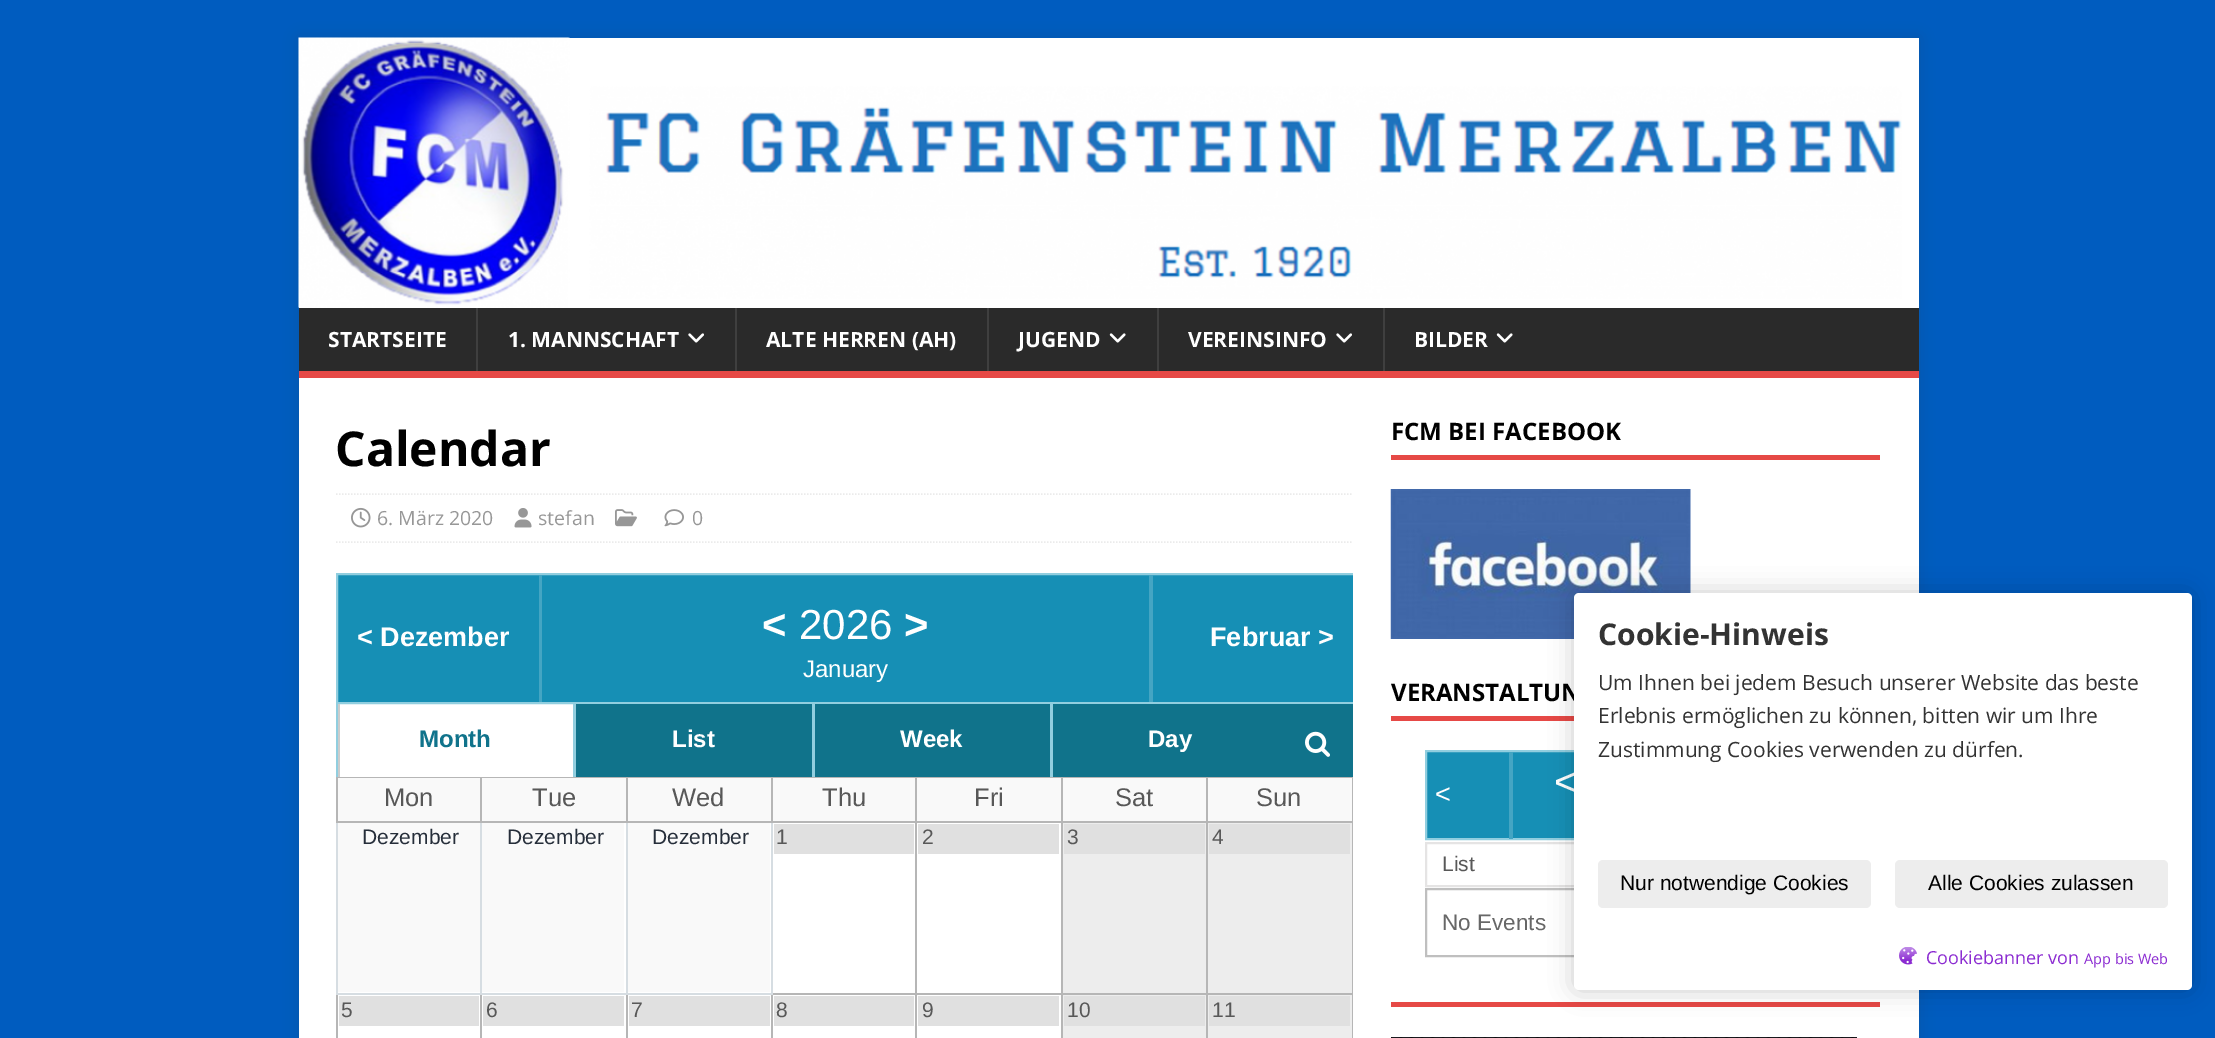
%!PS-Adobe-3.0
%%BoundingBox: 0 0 2215 1038
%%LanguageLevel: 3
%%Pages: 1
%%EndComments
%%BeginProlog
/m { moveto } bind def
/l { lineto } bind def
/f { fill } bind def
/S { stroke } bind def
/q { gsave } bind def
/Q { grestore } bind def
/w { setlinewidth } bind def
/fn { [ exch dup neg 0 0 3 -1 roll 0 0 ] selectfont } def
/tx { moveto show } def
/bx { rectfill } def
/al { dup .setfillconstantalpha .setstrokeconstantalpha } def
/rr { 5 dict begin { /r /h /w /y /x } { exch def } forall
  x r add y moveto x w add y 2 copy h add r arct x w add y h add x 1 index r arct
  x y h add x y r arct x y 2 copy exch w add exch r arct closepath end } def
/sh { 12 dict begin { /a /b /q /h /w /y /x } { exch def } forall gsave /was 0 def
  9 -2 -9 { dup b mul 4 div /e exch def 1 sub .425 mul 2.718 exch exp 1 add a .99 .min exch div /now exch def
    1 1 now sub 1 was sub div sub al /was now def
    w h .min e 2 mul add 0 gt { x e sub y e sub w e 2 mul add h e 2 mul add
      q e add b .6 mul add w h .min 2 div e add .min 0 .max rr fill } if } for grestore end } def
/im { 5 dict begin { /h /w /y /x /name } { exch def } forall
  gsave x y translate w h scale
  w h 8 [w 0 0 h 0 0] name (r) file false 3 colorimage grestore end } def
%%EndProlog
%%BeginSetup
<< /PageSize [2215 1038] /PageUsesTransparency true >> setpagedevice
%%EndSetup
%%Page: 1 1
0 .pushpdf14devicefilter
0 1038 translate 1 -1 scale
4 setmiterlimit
0 0.361 0.749 setrgbcolor
0 0 2215 1038 bx
0.196 setgray
299 38 1620 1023 0 7.5 0.17 sh
1 setgray
299 38 1620 270 bx
(image0.raw) 298 37 1604 271 im
0.165 setgray
299 308 1620 63 bx
0.902 0.286 0.275 setrgbcolor
299 371 1620 7 bx
/OpenSans-Bold 21 fn
1 setgray
(STARTSEITE) 328 347 tx
0.247 setgray
476 308 2 63 bx
1 setgray
(1. MANNSCHAFT) 508 347 tx
(image1.raw) 688 333 16 10 im
0.247 setgray
735 308 2 63 bx
1 setgray
(ALTE HERREN \(AH\)) 766 347 tx
0.247 setgray
987 308 2 63 bx
1 setgray
(JUGEND) 1018 347 tx
(image2.raw) 1109 333 17 10 im
0.247 setgray
1157 308 2 63 bx
1 setgray
(VEREINSINFO) 1188 347 tx
(image1.raw) 1336 333 16 10 im
0.247 setgray
1383 308 2 63 bx
1 setgray
(BILDER) 1414 347 tx
(image2.raw) 1496 333 17 10 im
299 378 1620 660 bx
/OpenSans-Bold 48 fn
0 setgray
(Calendar) 335 466 tx
0.922 setgray
1.5 w
[1.5 1.5] 0 setdash
336 494 m 1353 494 l S
336 542 m 1353 542 l S
(image3.raw) 351 507 20 21 im
/OpenSans-Regular 19.5 fn
0.592 setgray
(6. März 2020) 377 525 tx
(image4.raw) 514 508 18 20 im
(stefan) 538 525 tx
(image5.raw) 615 509 22 18 im
(image6.raw) 664 509 20 18 im
(0) 692 525 tx
0.086 0.561 0.71 setrgbcolor
338 575 1015 127 bx
q
336 416 1017 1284 rectclip
0.569 0.808 0.875 setrgbcolor
2 w
[] 0 setdash
337 574 1018 129 rectstroke
Q
0.267 0.647 0.765 setrgbcolor
539 575 3 127 bx
/LiberationSans-Bold 27 fn
1 setgray
(< Dezember) 357 646 tx
0.267 0.647 0.765 setrgbcolor
1149 575 4 127 bx
/LiberationSans-Bold 42 fn
1 setgray
(<) 762 639 tx
/LiberationSans-Regular 42 fn
(2026) 799 639 tx
/LiberationSans-Bold 42 fn
(>) 904 639 tx
/LiberationSans-Regular 24 fn
(January) 803 677 tx
/LiberationSans-Bold 27 fn
(Februar >) 1210 646 tx
0.569 0.808 0.875 setrgbcolor
573 704 3 73 bx
0.714 setgray
1206 777 147 1 bx
1206 821 147 2 bx
1206 993 147 2 bx
1206 993 2 45 bx
1061 993 147 2 bx
1206 821 2 174 bx
1061 821 147 2 bx
1206 776 2 46 bx
1061 777 147 1 bx
1061 993 2 45 bx
915 993 147 2 bx
1061 821 2 174 bx
915 821 147 2 bx
1061 776 2 46 bx
915 777 147 1 bx
915 993 2 45 bx
771 993 146 2 bx
915 821 2 174 bx
915 776 2 46 bx
771 777 146 1 bx
771 993 2 45 bx
0.839 0.867 0.886 setrgbcolor
771 821 2 174 bx
0.714 setgray
771 821 146 2 bx
771 776 2 46 bx
626 777 147 1 bx
626 993 2 45 bx
0.839 0.867 0.886 setrgbcolor
626 993 147 2 bx
626 821 2 174 bx
0.714 setgray
626 821 147 2 bx
626 776 2 46 bx
480 777 147 1 bx
480 993 2 45 bx
0.839 0.867 0.886 setrgbcolor
480 993 147 2 bx
480 821 2 174 bx
0.714 setgray
480 821 147 2 bx
480 776 2 46 bx
336 777 146 1 bx
336 993 2 45 bx
0.839 0.867 0.886 setrgbcolor
336 993 146 2 bx
336 821 2 174 bx
0.714 setgray
336 821 146 2 bx
336 776 2 46 bx
0.569 0.808 0.875 setrgbcolor
336 704 2 73 bx
1 setgray
480 776 2 1 bx
0.8 setgray
338 704 2 73 bx
/LiberationSans-Bold 24 fn
0.063 0.451 0.545 setrgbcolor
(Month) 419 747 tx
0.569 0.808 0.875 setrgbcolor
812 704 3 73 bx
0.063 0.451 0.545 setrgbcolor
576 704 236 73 bx
1 setgray
(List) 672 747 tx
0.063 0.451 0.545 setrgbcolor
815 704 235 73 bx
0.569 0.808 0.875 setrgbcolor
1050 704 3 73 bx
1 setgray
(Week) 900 747 tx
0.714 setgray
1352 993 1 45 bx
1352 821 1 174 bx
1352 776 1 46 bx
0.063 0.451 0.545 setrgbcolor
1053 704 300 73 bx
1 setgray
(Day) 1148 747 tx
(image7.raw) 1305 731 25 26 im
0.976 setgray
338 778 142 43 bx
/LiberationSans-Regular 25.5 fn
0.345 setgray
(Mon) 384 806 tx
0.976 setgray
482 778 144 43 bx
0.345 setgray
(Tue) 532 806 tx
0.976 setgray
628 778 143 43 bx
0.345 setgray
(Wed) 672 806 tx
0.976 setgray
773 778 142 43 bx
0.345 setgray
(Thu) 822 806 tx
0.976 setgray
917 778 144 43 bx
0.345 setgray
(Fri) 974 806 tx
0.976 setgray
1063 778 143 43 bx
0.345 setgray
(Sat) 1115 806 tx
0.976 setgray
1208 778 144 43 bx
0.345 setgray
(Sun) 1256 806 tx
0.976 setgray
338 823 142 169 bx
/LiberationSans-Regular 21 fn
0.149 0.18 0.227 setrgbcolor
(Dezember) 362 844 tx
0.976 setgray
482 823 142 169 bx
0.149 0.18 0.227 setrgbcolor
(Dezember) 507 844 tx
0.976 setgray
628 823 142 169 bx
0.149 0.18 0.227 setrgbcolor
(Dezember) 652 844 tx
0.878 setgray
774 824 140 30 bx
0.345 setgray
(1) 776 844 tx
0.878 setgray
918 824 141 30 bx
0.345 setgray
(2) 922 844 tx
0.929 setgray
1063 823 143 170 bx
0.878 setgray
1064 824 141 30 bx
0.345 setgray
(3) 1067 844 tx
0.929 setgray
1208 823 144 170 bx
0.878 setgray
1209 824 141 30 bx
0.345 setgray
(4) 1212 844 tx
0.878 setgray
339 996 140 30 bx
0.345 setgray
(5) 341 1017 tx
0.878 setgray
483 996 141 30 bx
0.345 setgray
(6) 486 1017 tx
0.878 setgray
629 996 141 30 bx
0.345 setgray
(7) 631 1017 tx
0.878 setgray
774 996 140 30 bx
0.345 setgray
(8) 776 1017 tx
0.878 setgray
918 996 141 30 bx
0.345 setgray
(9) 922 1017 tx
0.929 setgray
1063 995 143 43 bx
0.878 setgray
1064 996 141 30 bx
0.345 setgray
(10) 1067 1017 tx
0.929 setgray
1208 995 144 43 bx
0.878 setgray
1209 996 141 30 bx
0.345 setgray
(11) 1212 1017 tx
0.902 0.286 0.275 setrgbcolor
1391 455 489 5 bx
/OpenSans-Bold 24 fn
0 setgray
(FCM BEI FACEBOOK) 1391 440 tx
(image8.raw) 1390 489 301 150 im
0.902 0.286 0.275 setrgbcolor
1391 716 183 5 bx
0 setgray
(VERANSTALTUN) 1391 701 tx
0.086 0.561 0.71 setrgbcolor
1427 752 147 86 bx
0.569 0.808 0.875 setrgbcolor
2 w
[] 0 setdash
1426 751 421 88 rectstroke
0.267 0.647 0.765 setrgbcolor
1509 752 4 87 bx
/LiberationSans-Regular 27 fn
1 setgray
(<) 1435 803 tx
/LiberationSans-Regular 42 fn
(<) 1554 796 tx
0.898 0.894 0.894 setrgbcolor
1426 843 418 43 rectstroke
/LiberationSans-Regular 21 fn
0.345 setgray
(List) 1442 871 tx
0.749 setgray
1426 889 418 67 rectstroke
/LiberationSans-Regular 22.5 fn
0.404 setgray
(No Events) 1442 930 tx
0.902 0.286 0.275 setrgbcolor
1391 1002 489 5 bx
(image9.raw) 1391 1037 466 1 im
0 setgray
1574 593 618 397 5 12 0.2 sh
1 setgray
1574 593 618 397 5 rr f
/OpenSans-Bold 30 fn
0.2 setgray
(Cookie-Hinweis) 1598 645 tx
/OpenSans-Regular 21 fn
(Um Ihnen bei jedem Besuch unserer Website das beste) 1598 690 tx
(Erlebnis ermöglichen zu können, bitten wir um Ihre) 1598 723 tx
(Zustimmung Cookies verwenden zu dürfen.) 1598 757 tx
0.929 setgray
1598 860 273 48 5 rr f
/LiberationSans-Regular 21 fn
0 setgray
(Nur notwendige Cookies) 1620 890 tx
0.929 setgray
1895 860 273 48 5 rr f
0 setgray
(Alle Cookies zulassen) 1928 890 tx
(image10.raw) 1899 947 18 18 im
/OpenSans-Regular 18 fn
0.545 0.169 0.82 setrgbcolor
(Cookiebanner von) 1926 964 tx
/OpenSans-Regular 14.5 fn
(App bis Web) 2084 964 tx
.poppdf14devicefilter showpage
%%EOF
